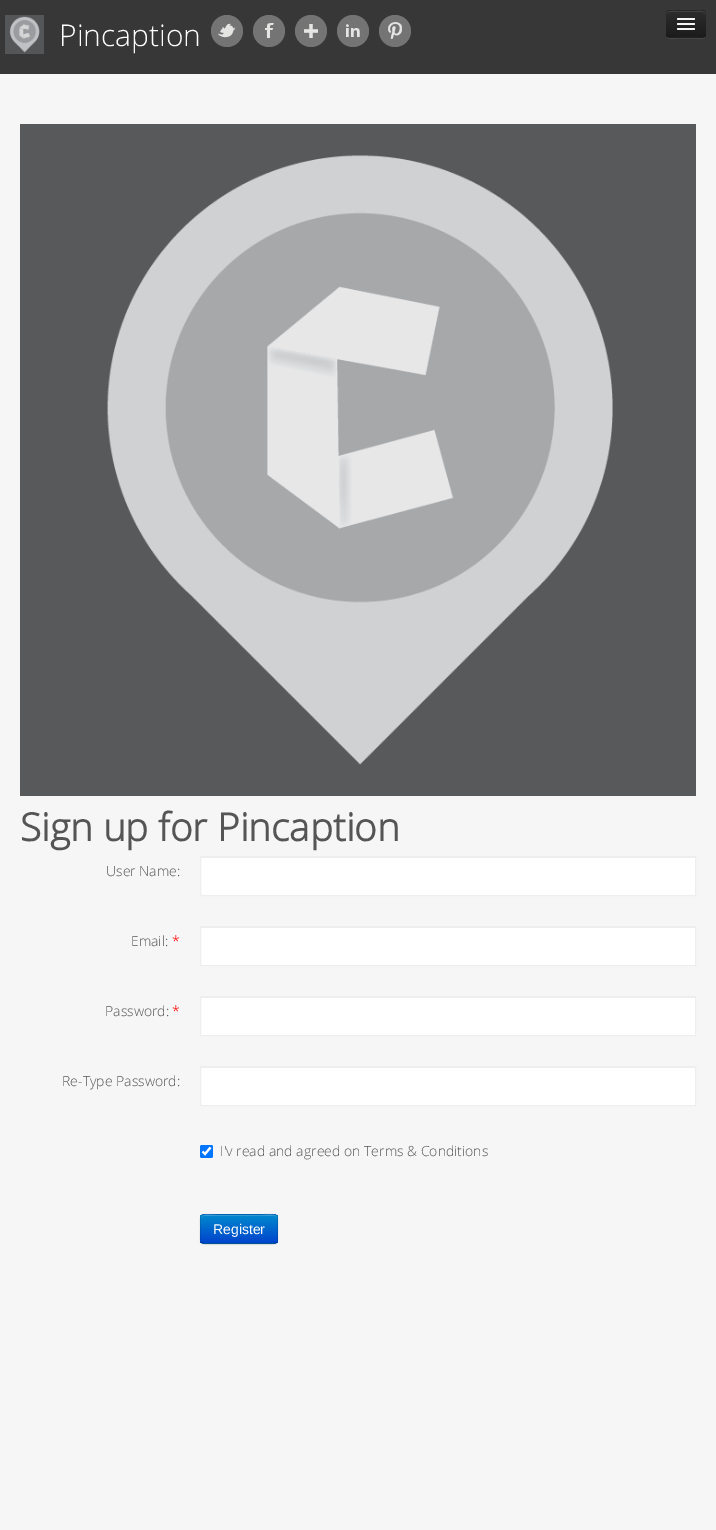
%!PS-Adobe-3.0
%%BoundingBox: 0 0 716 1530
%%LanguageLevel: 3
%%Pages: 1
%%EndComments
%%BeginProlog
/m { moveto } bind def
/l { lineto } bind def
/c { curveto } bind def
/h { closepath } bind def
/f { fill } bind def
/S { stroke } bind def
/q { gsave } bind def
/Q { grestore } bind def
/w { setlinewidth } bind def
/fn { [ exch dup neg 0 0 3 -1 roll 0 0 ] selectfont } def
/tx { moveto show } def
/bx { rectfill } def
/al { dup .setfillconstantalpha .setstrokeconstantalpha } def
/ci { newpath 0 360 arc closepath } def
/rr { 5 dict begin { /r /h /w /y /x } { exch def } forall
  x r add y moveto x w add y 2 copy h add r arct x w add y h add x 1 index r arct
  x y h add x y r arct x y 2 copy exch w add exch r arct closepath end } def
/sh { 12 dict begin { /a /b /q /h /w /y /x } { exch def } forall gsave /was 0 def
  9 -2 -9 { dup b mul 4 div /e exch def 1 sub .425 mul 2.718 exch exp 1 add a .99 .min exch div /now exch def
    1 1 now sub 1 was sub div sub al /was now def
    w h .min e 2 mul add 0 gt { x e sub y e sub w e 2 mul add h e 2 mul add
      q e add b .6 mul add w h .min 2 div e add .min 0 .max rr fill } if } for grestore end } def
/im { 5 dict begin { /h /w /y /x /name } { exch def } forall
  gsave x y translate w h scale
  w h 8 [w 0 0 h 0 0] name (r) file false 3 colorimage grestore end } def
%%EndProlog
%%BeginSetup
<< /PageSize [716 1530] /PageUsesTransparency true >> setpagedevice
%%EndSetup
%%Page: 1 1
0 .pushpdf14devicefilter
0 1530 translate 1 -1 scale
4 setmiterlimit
0.965 setgray
0 0 716 1530 bx
0.216 setgray
0 0 716 74 bx
(image0.raw) 5 15 39 39 im
/OpenSans-Light 30 fn
1 setgray
(Pincaption) 59 46 tx
0.455 setgray
227 31 16 ci f
(image1.raw) 217 23 19 15 im
269 31 16 ci f
(image2.raw) 265 23 9 15 im
311 31 16 ci f
(image3.raw) 304 24 14 14 im
353 31 16 ci f
(image4.raw) 346 24 14 13 im
395 31 16 ci f
(image5.raw) 388 22 14 17 im
0.275 setgray
666 34 m 666 40 671 39 675 39 c 697 39 l 701 39 706 40 706 34 c 706 36 704 38 702 38 c 670 38 l 668 38 666 36 666 34 c h f
0.145 setgray
666 10 40 28 4 rr f
q
666 10 40 28 4 rr clip newpath
q 666 11 m 706 11 l 706 37 l 666 37 l h clip newpath
<< /ShadingType 2 /ColorSpace /DeviceRGB /Coords [686 11 686 37] /Extend [true true] /Function << /FunctionType 2 /Domain [0 1] /C0 [0.173 0.173 0.173] /C1 [0.11 0.11 0.11] /N 1 >> >> shfill Q
Q
0.255 setgray
670 12 m 702 12 l 704 12 705 13 705 15 c 705 10 701 11 696.5 11 c 675.5 11 l 671 11 667 10 667 15 c 667 13 668 12 670 12 c h f
0.25 al
0.098 setgray
704.5 36.5 m 704 37 703 37.5 702 37.5 c 670 37.5 l 669 37.5 668 37 667.5 36.5 c S
1 al
0.137 setgray
677 19.5 m 676 21.5 680.5 21 680.5 21 c 691.5 21 l 691.5 21 696 21.5 695 19.5 c 694 20.5 687.5 20 686 20 c 684.5 20 678 20.5 677 19.5 c h f
0.961 setgray
677 18 18 2 1 rr f
677 23 18 2 1 rr f
677 28 18 2 1 rr f
(image6.raw) 20 124 676 672 im
/OpenSans-Bold 38.5 fn
0.333 setgray
(Sign up for Pincaption) 20 841 tx
/OpenSans-Light 14 fn
(User Name:) 106 876 tx
1 setgray
201 858 494 37 bx
0.925 setgray
201 857 494 1 bx
0.933 setgray
200.5 856.5 495 39 rectstroke
0.333 setgray
(Email:) 131 946 tx
1 0 0 setrgbcolor
(*) 172 946 tx
1 setgray
201 928 494 37 bx
0.925 setgray
201 927 494 1 bx
0.933 setgray
200.5 926.5 495 39 rectstroke
0.333 setgray
(Password:) 105 1016 tx
1 0 0 setrgbcolor
(*) 172 1016 tx
1 setgray
201 998 494 37 bx
0.925 setgray
201 997 494 1 bx
0.933 setgray
200.5 996.5 495 39 rectstroke
0.333 setgray
(Re-Type Password:) 62 1086 tx
1 setgray
201 1068 494 37 bx
0.925 setgray
201 1067 494 1 bx
0.933 setgray
200.5 1066.5 495 39 rectstroke
0 0.459 1 setrgbcolor
200 1145 13 13 2 rr f
1 setgray
2.1 w
202.5 1151.5 m 205 1154 l 210.5 1147.5 l S
0.333 setgray
(I'v read and agreed on Terms & Conditions) 220 1156 tx
0 setgray
200 1215 78 30 4 1 0.05 sh
0 0.427 0.8 setrgbcolor
200 1214 78 30 4 rr f
q
200 1214 78 30 4 rr clip newpath
q 200 1215 m 278 1215 l 278 1243 l 200 1243 l h clip newpath
<< /ShadingType 2 /ColorSpace /DeviceRGB /Coords [239 1215 239 1243] /Extend [true true] /Function << /FunctionType 2 /Domain [0 1] /C0 [0 0.533 0.8] /C1 [0 0.267 0.8] /N 1 >> >> shfill Q
Q
0.2 al
1 setgray
204 1216 m 274 1216 l 276 1216 277 1217 277 1219 c 277 1212 266 1215 262 1215 c 216 1215 l 212 1215 201 1212 201 1219 c 201 1217 202 1216 204 1216 c h f
0.25 al
0 setgray
1 w
276.5 1242.5 m 276 1243 275 1243.5 274 1243.5 c 204 1243.5 l 203 1243.5 202 1243 201.5 1242.5 c S
0.1 al
201.5 1242.5 m 199.5 1240.5 200.5 1232 200.5 1229 c 200.5 1212.5 198 1214.5 215.5 1214.5 c 262.5 1214.5 l 280 1214.5 277.5 1212.5 277.5 1229 c 277.5 1232 278.5 1240.5 276.5 1242.5 c S
/LiberationSans-Regular 14 fn
1 al
1 setgray
(Register) 213 1234 tx
.poppdf14devicefilter showpage
%%EOF
